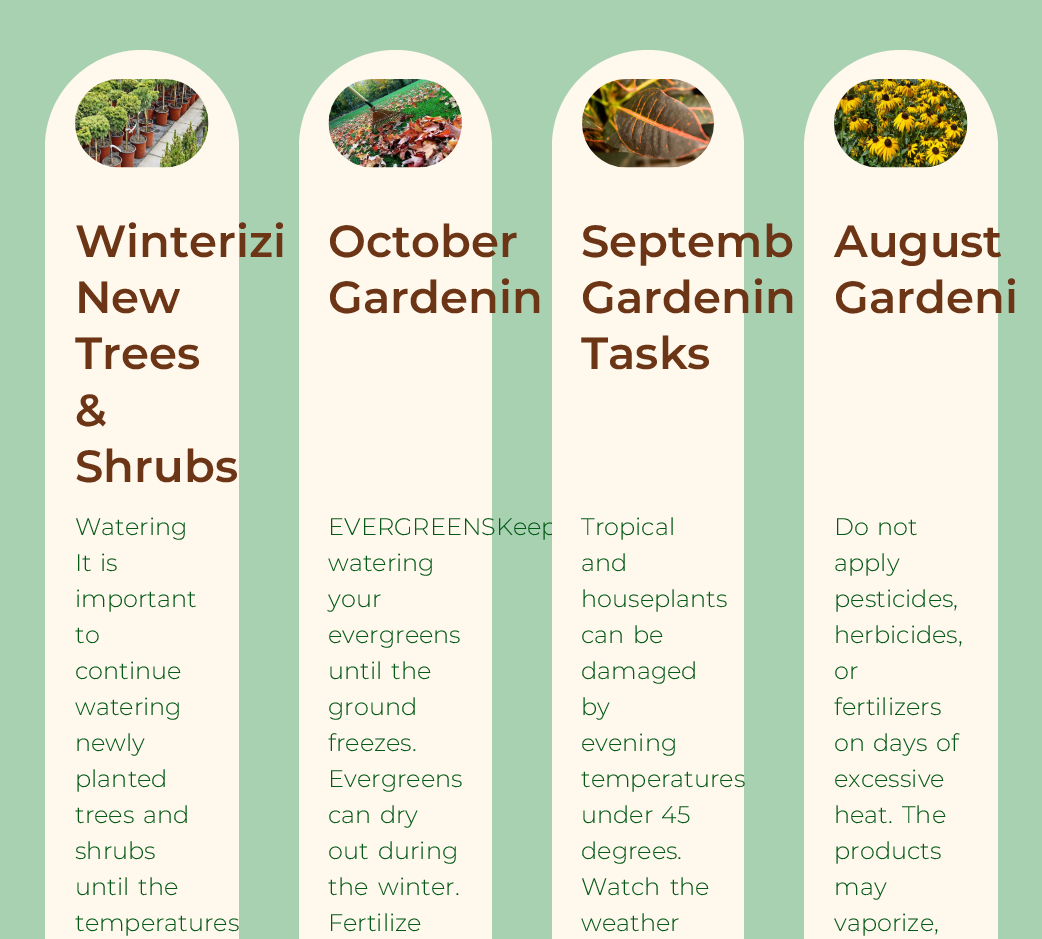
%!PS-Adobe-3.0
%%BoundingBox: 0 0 1042 939
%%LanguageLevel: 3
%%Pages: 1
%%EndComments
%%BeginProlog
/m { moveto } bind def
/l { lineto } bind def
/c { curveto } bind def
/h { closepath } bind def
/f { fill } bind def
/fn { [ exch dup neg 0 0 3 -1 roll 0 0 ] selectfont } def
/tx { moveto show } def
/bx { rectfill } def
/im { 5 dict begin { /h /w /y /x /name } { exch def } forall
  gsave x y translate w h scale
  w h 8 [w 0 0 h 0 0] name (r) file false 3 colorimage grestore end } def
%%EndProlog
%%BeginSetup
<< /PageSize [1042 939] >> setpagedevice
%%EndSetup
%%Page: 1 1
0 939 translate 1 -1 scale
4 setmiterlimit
0.659 0.82 0.694 setrgbcolor
0 0 1042 939 bx
1 0.973 0.929 setrgbcolor
142 50 m 195.5 50 239 93.5 239 147 c 239 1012 l 239 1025.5 228.5 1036 215 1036 c 69 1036 l 55.5 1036 45 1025.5 45 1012 c 45 147 l 45 93.5 88.5 50 142 50 c h f
(image0.raw) 75 79 134 89 im
/Montserrat-SemiBold 45 fn
0.424 0.208 0.086 setrgbcolor
(Winterizi) 75 257 tx
(New) 75 313 tx
(Trees) 75 369 tx
(&) 75 426 tx
(Shrubs) 75 482 tx
/Montserrat-Light 24 fn
0.012 0.349 0.086 setrgbcolor
(Watering) 75 535 tx
75 571 m 2 0 32 (It is) widthshow
(important) 75 607 tx
(to) 75 643 tx
(continue) 75 679 tx
(watering) 75 715 tx
(newly) 75 751 tx
(planted) 75 787 tx
75 823 m 3 0 32 (trees and) widthshow
(shrubs) 75 859 tx
75 895 m 3 0 32 (until the) widthshow
(temperatures) 75 931 tx
1 0.973 0.929 setrgbcolor
395.5 50 m 449 50 492 93 492 146.5 c 492 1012 l 492 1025.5 481.5 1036 468 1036 c 323 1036 l 309.5 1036 299 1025.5 299 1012 c 299 146.5 l 299 93 342 50 395.5 50 c h f
(image1.raw) 328 79 134 89 im
/Montserrat-SemiBold 45 fn
0.424 0.208 0.086 setrgbcolor
(October) 328 257 tx
(Gardenin) 328 313 tx
/Montserrat-Light 24 fn
0.012 0.349 0.086 setrgbcolor
(EVERGREENSKeep) 328 535 tx
(watering) 328 571 tx
(your) 328 607 tx
(evergreens) 328 643 tx
328 679 m 3 0 32 (until the) widthshow
(ground) 328 715 tx
(freezes.) 328 751 tx
(Evergreens) 328 787 tx
328 823 m 2 0 32 (can dry) widthshow
328 859 m 3 0 32 (out during) widthshow
328 895 m 4 0 32 (the winter.) widthshow
(Fertilize) 328 931 tx
1 0.973 0.929 setrgbcolor
648 50 m 701 50 744 93 744 146 c 744 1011 l 744 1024.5 733.5 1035 720 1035 c 576 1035 l 562.5 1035 552 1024.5 552 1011 c 552 146 l 552 93 595 50 648 50 c h f
(image2.raw) 582 79 132 89 im
/Montserrat-SemiBold 45 fn
0.424 0.208 0.086 setrgbcolor
(Septemb) 581 257 tx
(Gardenin) 581 313 tx
(Tasks) 581 369 tx
/Montserrat-Light 24 fn
0.012 0.349 0.086 setrgbcolor
(Tropical) 581 535 tx
(and) 581 571 tx
(houseplants) 581 607 tx
581 643 m 2 0 32 (can be) widthshow
(damaged) 581 679 tx
(by) 581 715 tx
(evening) 581 751 tx
(temperatures) 581 787 tx
581 823 m 2 0 32 (under 45) widthshow
(degrees.) 581 859 tx
581 895 m 3 0 32 (Watch the) widthshow
(weather) 581 931 tx
1 0.973 0.929 setrgbcolor
901 50 m 954.5 50 998 93.5 998 147 c 998 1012 l 998 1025.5 987.5 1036 974 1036 c 828 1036 l 814.5 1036 804 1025.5 804 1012 c 804 147 l 804 93.5 847.5 50 901 50 c h f
(image3.raw) 834 79 134 89 im
/Montserrat-SemiBold 45 fn
0.424 0.208 0.086 setrgbcolor
(August) 834 257 tx
(Gardeni) 834 313 tx
/Montserrat-Light 24 fn
0.012 0.349 0.086 setrgbcolor
834 535 m 2 0 32 (Do not) widthshow
(apply) 834 571 tx
(pesticides,) 834 607 tx
(herbicides,) 834 643 tx
(or) 834 679 tx
(fertilizers) 834 715 tx
834 751 m 2 0 32 (on days of) widthshow
(excessive) 834 787 tx
834 823 m 3 0 32 (heat. The) widthshow
(products) 834 859 tx
(may) 834 895 tx
(vaporize,) 834 931 tx
showpage
%%EOF
